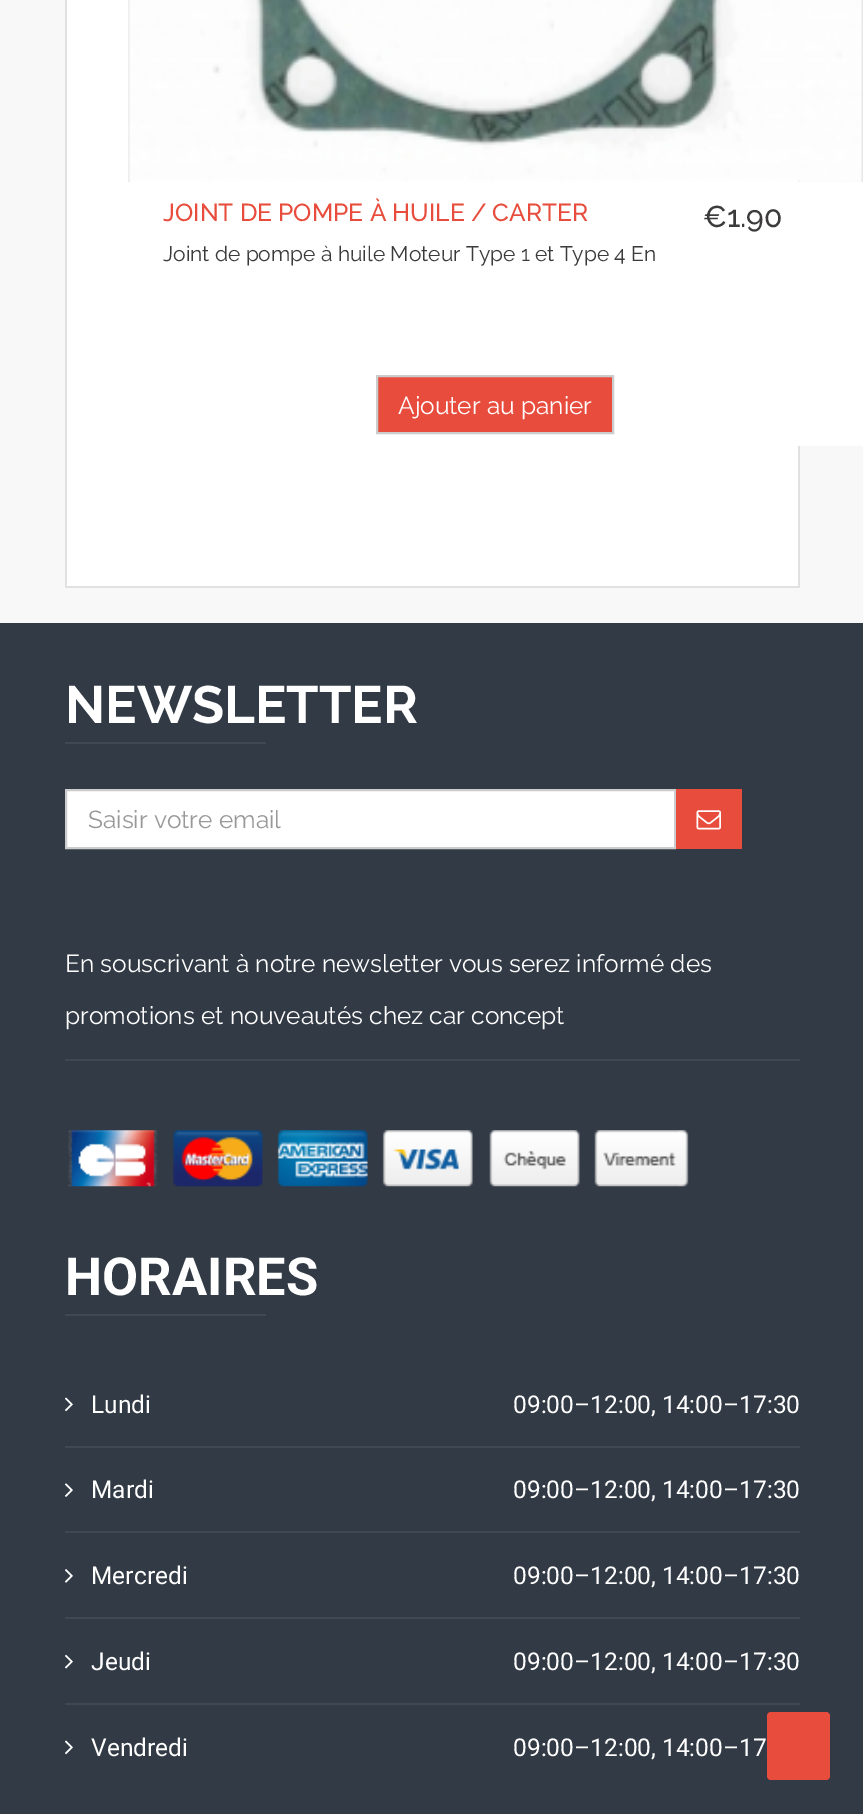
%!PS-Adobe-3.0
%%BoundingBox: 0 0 863 1814
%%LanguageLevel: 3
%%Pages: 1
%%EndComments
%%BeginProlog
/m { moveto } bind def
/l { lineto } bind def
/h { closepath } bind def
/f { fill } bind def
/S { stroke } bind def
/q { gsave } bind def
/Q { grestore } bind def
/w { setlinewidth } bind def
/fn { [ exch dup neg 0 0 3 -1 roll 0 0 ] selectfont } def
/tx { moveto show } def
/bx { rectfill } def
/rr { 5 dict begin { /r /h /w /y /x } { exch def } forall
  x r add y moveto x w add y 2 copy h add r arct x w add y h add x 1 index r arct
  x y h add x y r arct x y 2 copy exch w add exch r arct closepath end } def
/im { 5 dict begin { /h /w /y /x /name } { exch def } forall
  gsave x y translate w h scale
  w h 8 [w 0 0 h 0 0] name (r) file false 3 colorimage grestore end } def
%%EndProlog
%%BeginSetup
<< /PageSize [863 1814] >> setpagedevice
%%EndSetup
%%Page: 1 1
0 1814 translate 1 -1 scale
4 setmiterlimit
0.973 setgray
0 0 863 1814 bx
1 setgray
67 0 731 586 bx
0.882 setgray
798 179 2 409 bx
65 586 735 2 bx
65 0 2 588 bx
0.91 setgray
128 0 2 182 bx
861 0 2 182 bx
(image0.raw) 128 0 734 182 im
1 setgray
798 182 65 264 bx
/Raleway-Medium 24.5 fn
0.906 0.298 0.235 setrgbcolor
(JOINT DE POMPE À HUILE / CARTER) 163 221 tx
/Raleway-Regular 21 fn
0.235 0.227 0.227 setrgbcolor
(Joint de pompe à huile Moteur Type 1 et Type 4 En) 163 261 tx
/Raleway-Medium 30 fn
(€1.90) 703 227 tx
0.906 0.298 0.235 setrgbcolor
377 376 m 613 376 l 613 433 l 377 433 l h q f Q
0.8 setgray
2 w
S
/Raleway-Regular 24.5 fn
1 setgray
(Ajouter au panier) 398 414 tx
0.196 0.227 0.271 setrgbcolor
0 623 863 1191 bx
/Raleway-Bold 52.5 fn
1 setgray
(NEWSLETTER) 65 723 tx
0.251 0.282 0.322 setrgbcolor
65 742 201 2 bx
1 setgray
66 790 m 675 790 l 675 848 l 66 848 l h q f Q
0.8 setgray
S
/Raleway-Regular 24.5 fn
0.6 setgray
(Saisir votre email) 88 828 tx
0.906 0.298 0.235 setrgbcolor
676 789 66 60 bx
(image1.raw) 696 810 25 20 im
0.251 0.282 0.322 setrgbcolor
65 1059 735 2 bx
1 setgray
(En souscrivant à notre newsletter vous serez informé des) 65 972 tx
(promotions et nouveautés chez car concept) 65 1024 tx
(image2.raw) 68 1130 621 57 im
/Roboto-Bold 52.5 fn
(HORAIRES) 65 1295 tx
0.251 0.282 0.322 setrgbcolor
65 1314 201 2 bx
65 1446 735 2 bx
(image3.raw) 65 1397 8 15 im
/Roboto-Regular 24.5 fn
1 setgray
(Lundi) 91 1413 tx
(09:00–12:00, 14:00–17:30) 513 1413 tx
0.251 0.282 0.322 setrgbcolor
65 1531 735 2 bx
(image4.raw) 65 1483 8 14 im
1 setgray
(Mardi) 91 1498 tx
(09:00–12:00, 14:00–17:30) 513 1498 tx
0.251 0.282 0.322 setrgbcolor
65 1617 735 2 bx
(image5.raw) 65 1569 8 14 im
1 setgray
(Mercredi) 91 1584 tx
(09:00–12:00, 14:00–17:30) 513 1584 tx
0.251 0.282 0.322 setrgbcolor
65 1703 735 2 bx
(image6.raw) 65 1654 8 15 im
1 setgray
(Jeudi) 91 1670 tx
(09:00–12:00, 14:00–17:30) 513 1670 tx
(image3.raw) 65 1740 8 15 im
(Vendredi) 91 1756 tx
(09:00–12:00, 14:00–17) 513 1756 tx
0.906 0.298 0.235 setrgbcolor
767 1712 63 68 4 rr f
showpage
%%EOF
